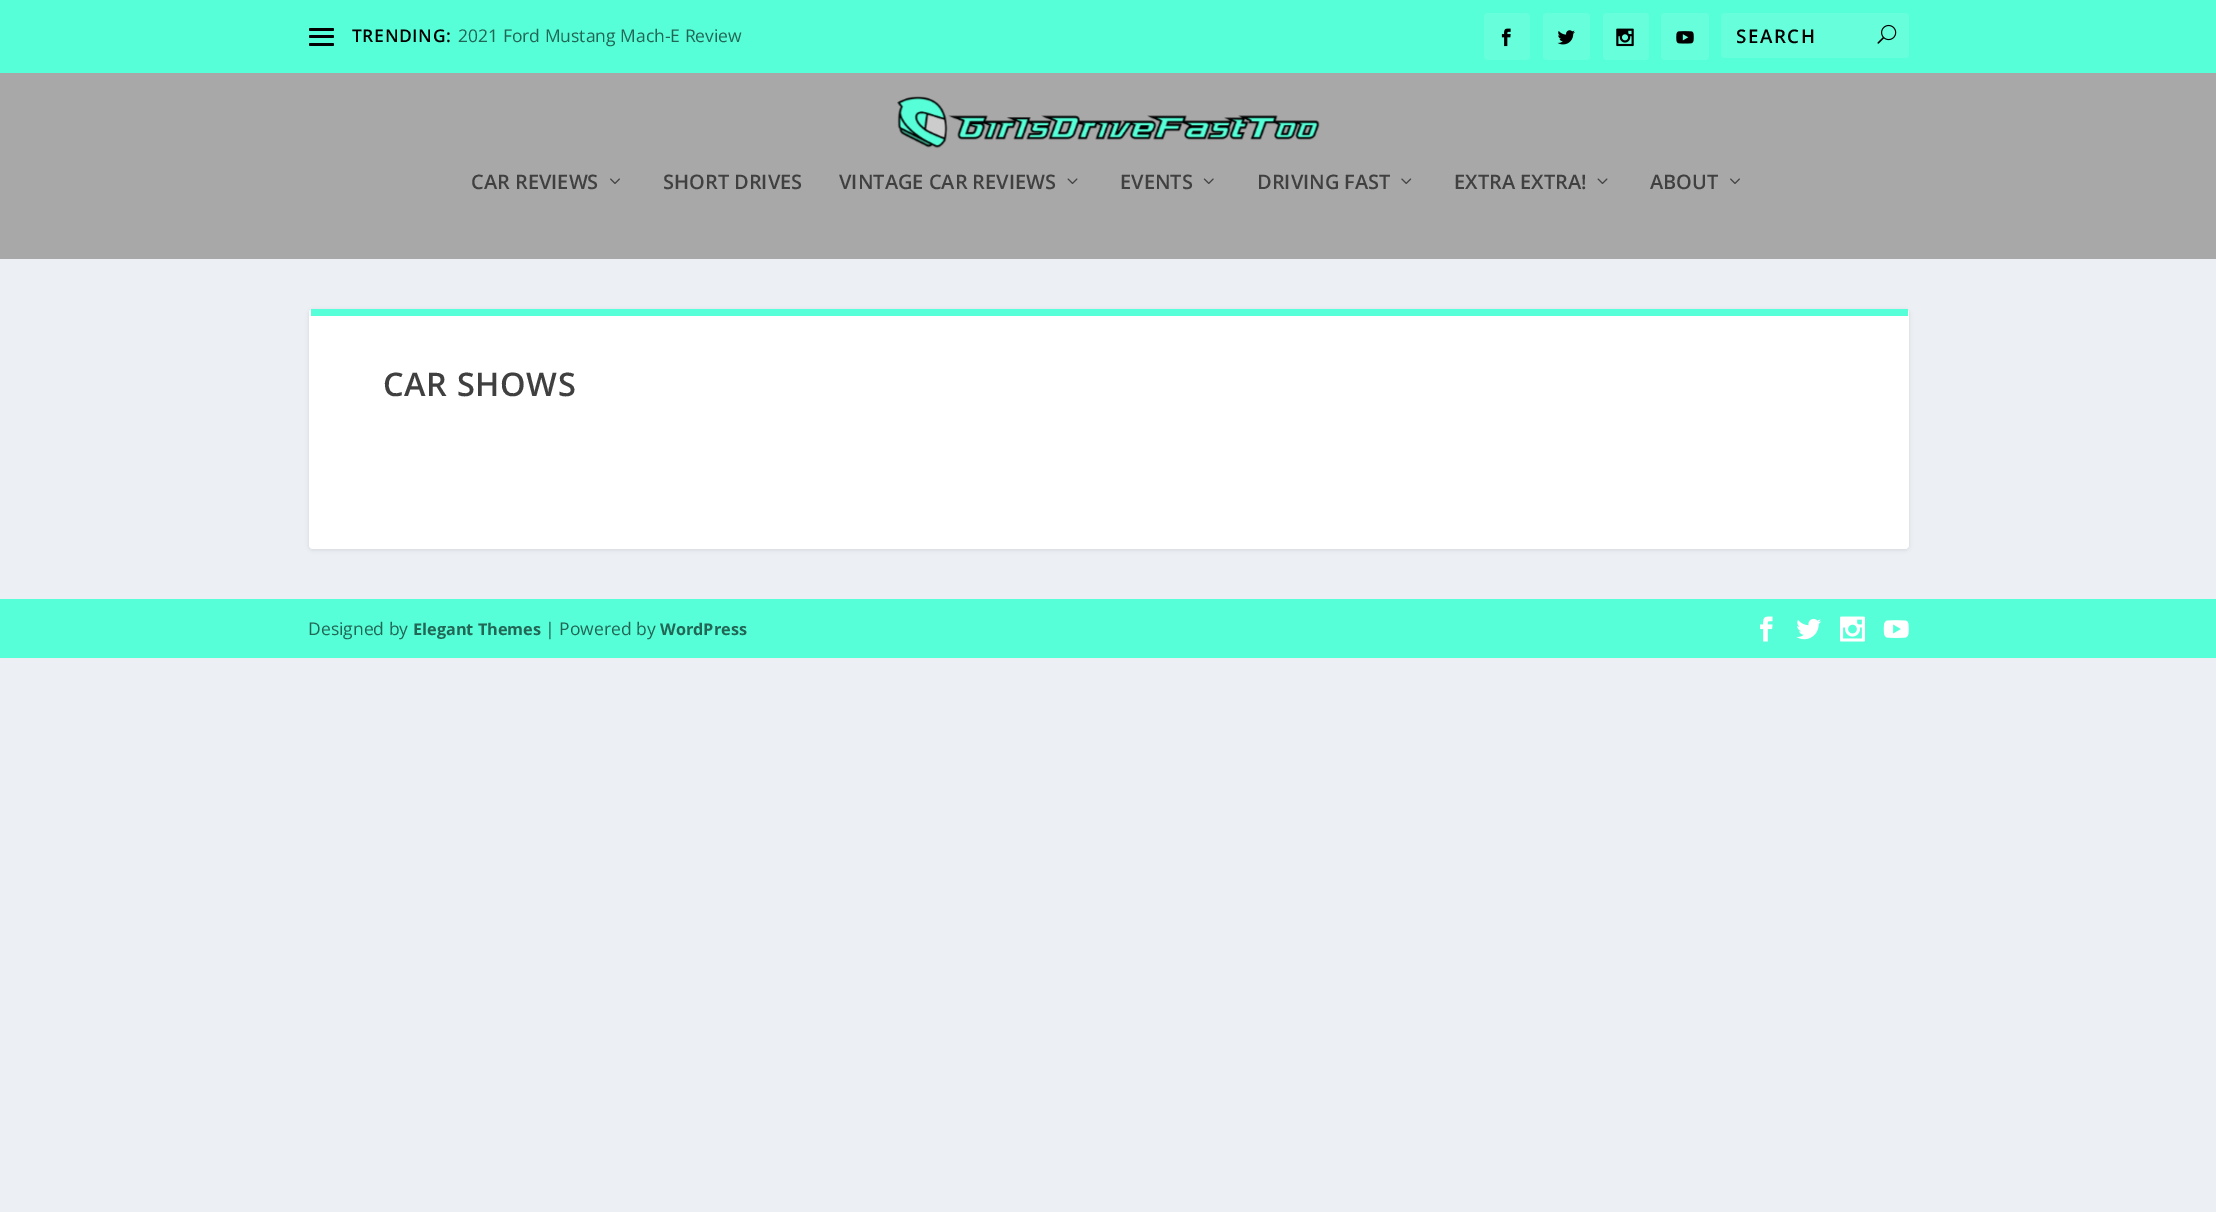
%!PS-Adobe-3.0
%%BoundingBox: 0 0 2216 1212
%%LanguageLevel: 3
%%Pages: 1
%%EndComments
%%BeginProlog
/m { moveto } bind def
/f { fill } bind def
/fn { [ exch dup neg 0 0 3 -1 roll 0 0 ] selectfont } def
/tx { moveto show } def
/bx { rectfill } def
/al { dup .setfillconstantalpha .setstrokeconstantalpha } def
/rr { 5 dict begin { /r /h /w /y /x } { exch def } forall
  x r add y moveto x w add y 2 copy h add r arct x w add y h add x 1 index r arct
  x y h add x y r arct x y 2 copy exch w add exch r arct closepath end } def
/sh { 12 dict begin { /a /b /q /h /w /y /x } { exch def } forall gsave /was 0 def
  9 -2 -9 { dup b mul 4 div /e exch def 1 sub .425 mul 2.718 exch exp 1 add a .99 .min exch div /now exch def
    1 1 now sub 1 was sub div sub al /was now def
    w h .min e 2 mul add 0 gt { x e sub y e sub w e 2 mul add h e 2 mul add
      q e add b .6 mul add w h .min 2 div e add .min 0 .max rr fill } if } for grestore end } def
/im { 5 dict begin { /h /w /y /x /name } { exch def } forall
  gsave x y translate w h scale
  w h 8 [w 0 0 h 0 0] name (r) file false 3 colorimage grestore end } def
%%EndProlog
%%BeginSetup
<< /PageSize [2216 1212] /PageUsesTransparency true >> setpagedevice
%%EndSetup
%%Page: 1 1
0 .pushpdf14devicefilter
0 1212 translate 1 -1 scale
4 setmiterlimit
0.925 0.941 0.961 setrgbcolor
0 0 2216 1212 bx
0.337 1 0.843 setrgbcolor
0 0 2216 73 bx
0 setgray
309 28 25 3 1.5 rr f
309 35 25 3 1.5 rr f
309 43 25 3 1.5 rr f
/OpenSans-SemiBold 17.5 fn
352 42 m 0.6 0 (TRENDING:) ashow
/OpenSans-Regular 17.5 fn
0.133 0.4 0.337 setrgbcolor
(2021 Ford Mustang Mach-E Review) 458 42 tx
0.404 1 0.859 setrgbcolor
1484 13 46 47 4 rr f
(image0.raw) 1501 28 10 19 im
1543 13 47 47 4 rr f
(image1.raw) 1557 30 18 15 im
1603 13 46 47 4 rr f
(image2.raw) 1616 28 18 19 im
1661 13 48 47 4 rr f
(image3.raw) 1676 31 18 13 im
1721 13 188 45 4 rr f
/OpenSans-SemiBold 18.75 fn
0 setgray
1736 43 m 1.5 0 (SEARCH) ashow
(image4.raw) 1877 24 20 20 im
0.659 setgray
0 73 2216 186 bx
(image5.raw) 897 96 423 53 im
/OpenSans-SemiBold 20 fn
0.251 setgray
(CAR REVIEWS) 471 189 tx
(image6.raw) 610 178 10 6 im
(SHORT DRIVES) 663 189 tx
(VINTAGE CAR REVIEWS) 839 189 tx
(image7.raw) 1067 178 11 6 im
(EVENTS) 1120 189 tx
(image8.raw) 1203 178 11 6 im
(DRIVING FAST) 1257 189 tx
(image9.raw) 1401 178 11 6 im
(EXTRA EXTRA!) 1454 189 tx
(image7.raw) 1597 178 11 6 im
(ABOUT) 1650 189 tx
(image6.raw) 1730 178 10 6 im
0 setgray
309 310 1600 240 4 2 0.1 sh
1 setgray
309 309 1600 240 4 rr f
0.337 1 0.843 setrgbcolor
311 309 1597 7 bx
/OpenSans-SemiBold 32.5 fn
0.251 setgray
383 396 m 0.6 0 (CAR SHOWS) ashow
0.337 1 0.843 setrgbcolor
0 599 2216 59 bx
/OpenSans-Regular 17.5 fn
0.133 0.4 0.337 setrgbcolor
(Designed by) 308 635 tx
/OpenSans-Bold 16.25 fn
(Elegant Themes) 413 635 tx
/OpenSans-Regular 17.5 fn
(| Powered by) 545 635 tx
/OpenSans-Bold 16.25 fn
(WordPress) 660 635 tx
(image10.raw) 1760 616 13 26 im
(image11.raw) 1796 618 26 22 im
(image12.raw) 1840 616 25 26 im
(image13.raw) 1883 620 26 18 im
.poppdf14devicefilter showpage
%%EOF
